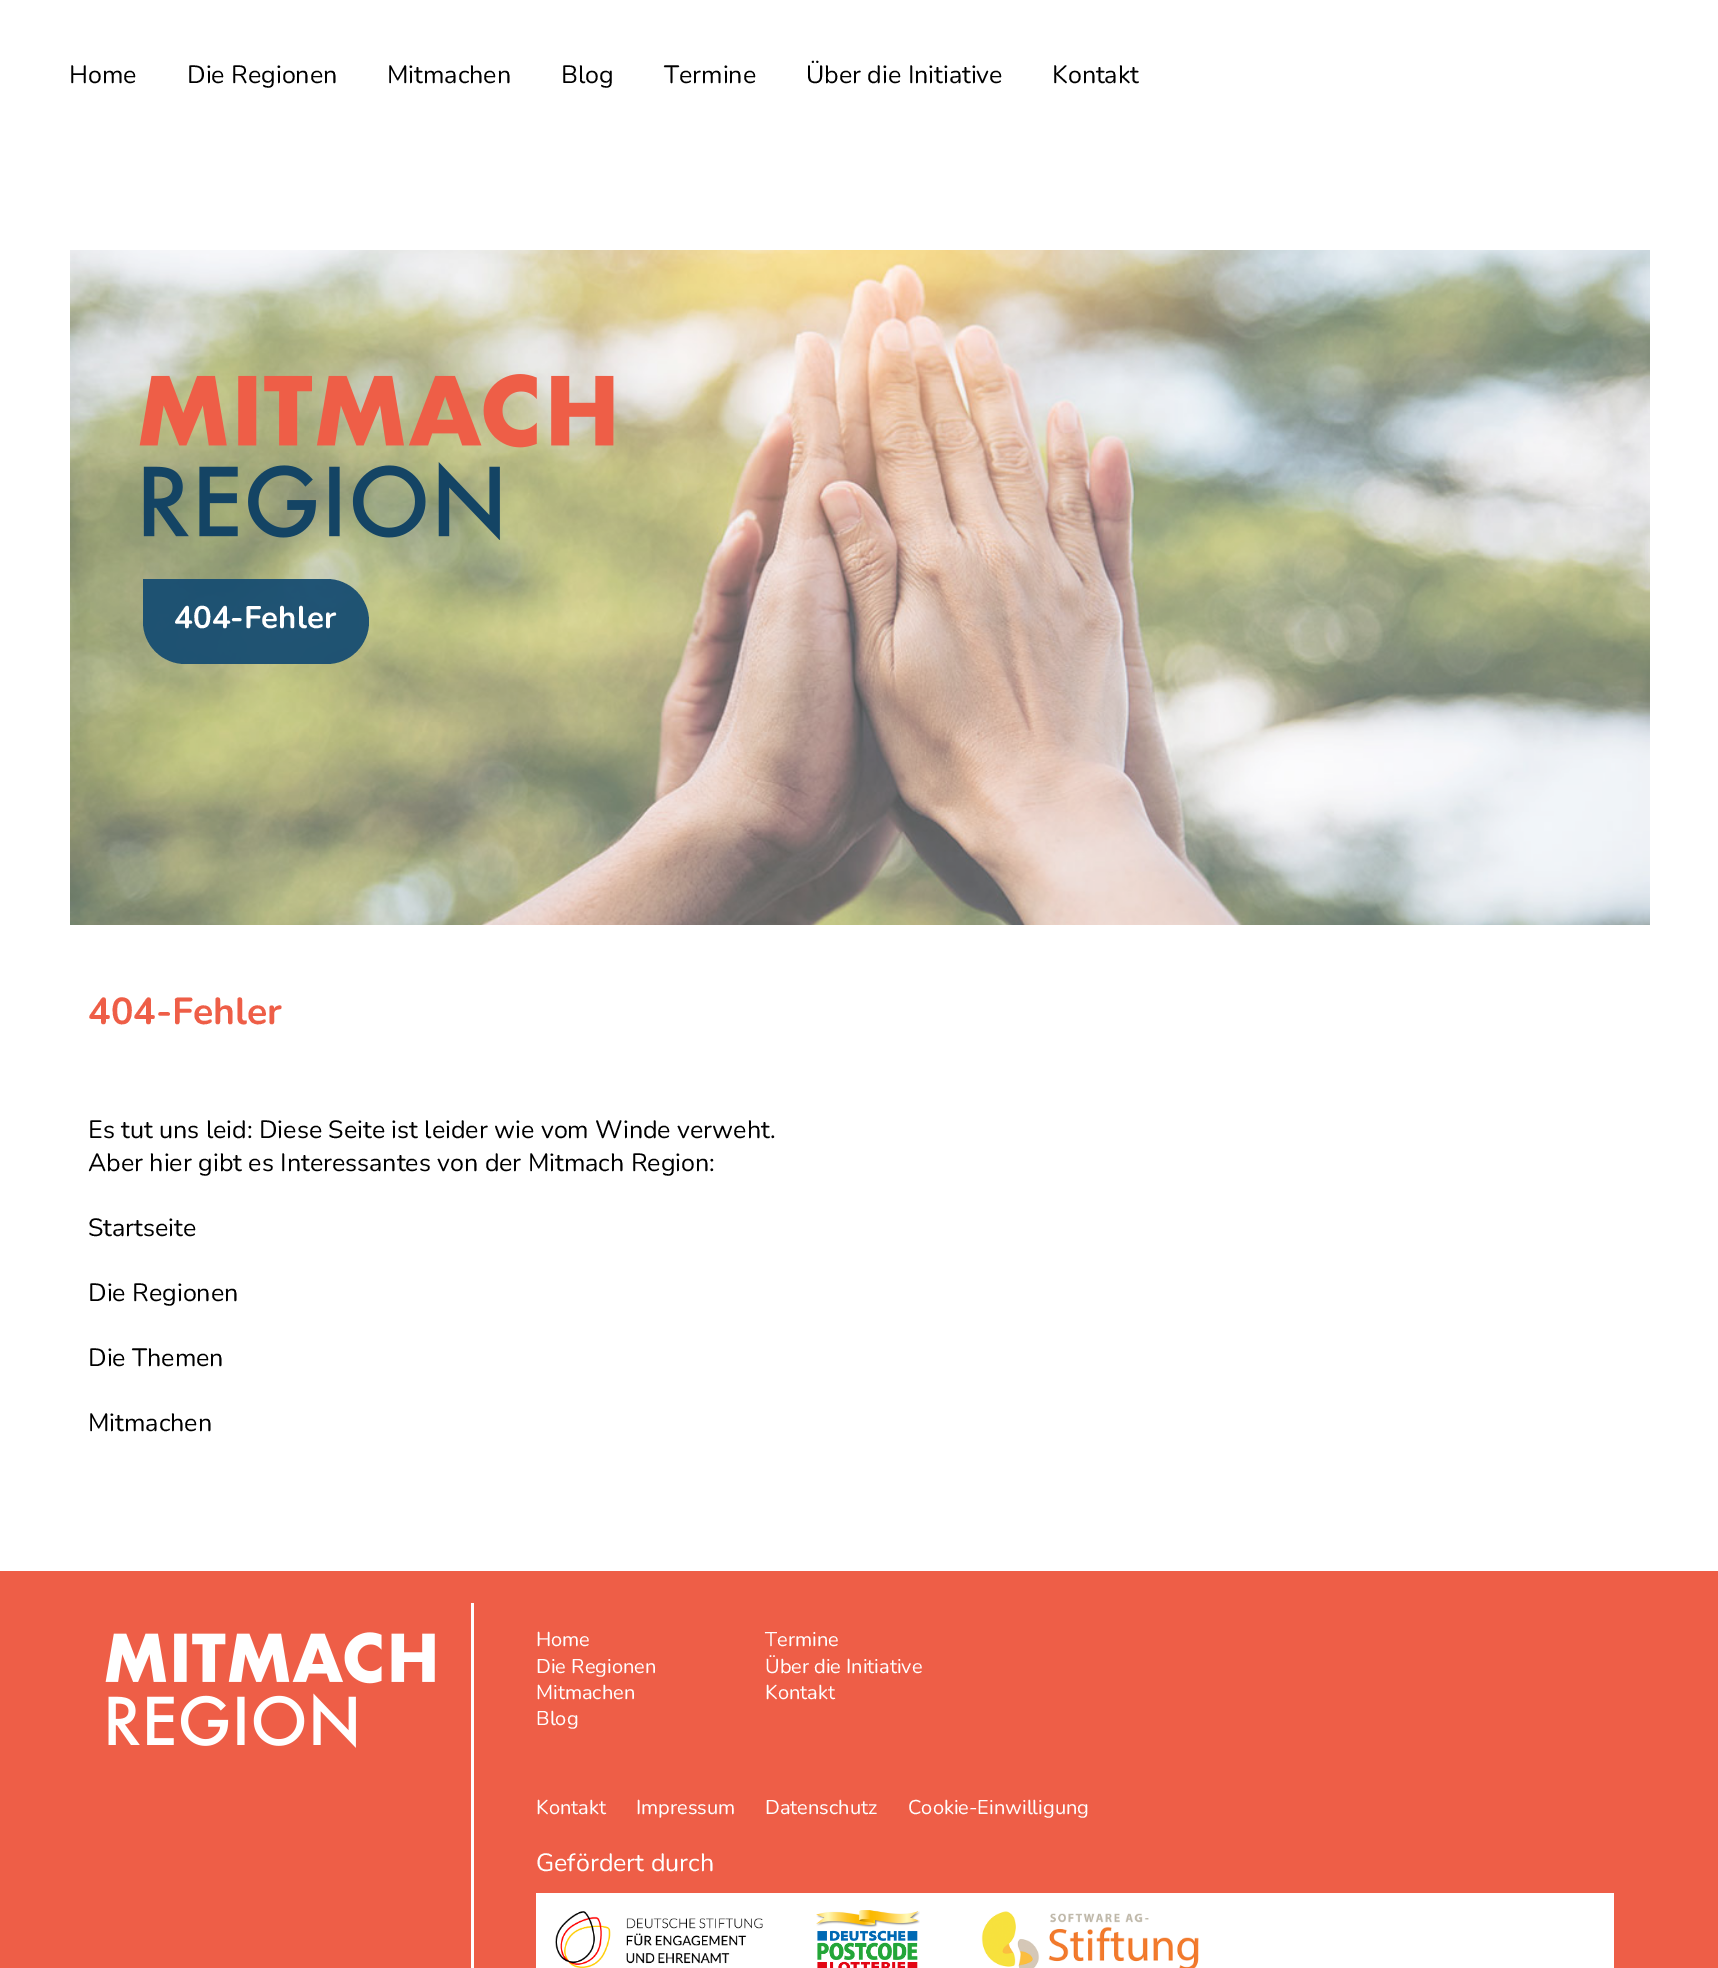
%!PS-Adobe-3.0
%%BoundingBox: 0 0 1718 1968
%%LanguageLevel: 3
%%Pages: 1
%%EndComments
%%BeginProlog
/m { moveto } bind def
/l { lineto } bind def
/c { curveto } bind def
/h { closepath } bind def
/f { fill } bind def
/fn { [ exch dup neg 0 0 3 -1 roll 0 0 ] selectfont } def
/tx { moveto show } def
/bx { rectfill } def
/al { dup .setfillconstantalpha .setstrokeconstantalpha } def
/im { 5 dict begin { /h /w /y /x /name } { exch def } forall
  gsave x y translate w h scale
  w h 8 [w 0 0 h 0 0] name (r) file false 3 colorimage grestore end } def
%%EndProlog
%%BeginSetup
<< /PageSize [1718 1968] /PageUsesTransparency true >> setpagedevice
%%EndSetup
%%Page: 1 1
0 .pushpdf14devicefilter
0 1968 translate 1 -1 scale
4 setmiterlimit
1 setgray
0 0 1718 1968 bx
/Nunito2-ExtraLight 25 fn
0 setgray
(Home) 69 83 tx
(Die Regionen) 187 83 tx
(Mitmachen) 387 83 tx
(Blog) 561 83 tx
(Termine) 664 83 tx
(Über die Initiative) 806 83 tx
(Kontakt) 1052 83 tx
(image0.raw) 70 250 1580 675 im
0.95 al
0.09 0.302 0.443 setrgbcolor
143 579 m 326.5 579 l 350 579 369 598 369 621.5 c 369 645 350 664 326.5 664 c 185.5 664 l 162 664 143 645 143 621.5 c h f
1 al
(image1.raw) 139 374 475 166 im
/Nunito-ExtraLight 31.25 fn
1 setgray
(404-Fehler) 174 628 tx
/Nunito-ExtraLight 37.5 fn
0.933 0.369 0.278 setrgbcolor
(404-Fehler) 88 1024 tx
/Nunito2-ExtraLight 25 fn
0 setgray
(Es tut uns leid: Diese Seite ist leider wie vom Winde verweht.) 88 1138 tx
(Aber hier gibt es Interessantes von der Mitmach Region:) 88 1171 tx
(Startseite) 88 1236 tx
(Die Regionen) 88 1301 tx
(Die Themen) 88 1366 tx
(Mitmachen) 88 1431 tx
0.933 0.369 0.278 setrgbcolor
0 1571 1718 397 bx
(image2.raw) 105 1632 330 116 im
1 setgray
471 1603 3 365 bx
/Nunito2-ExtraLight 20 fn
(Home) 536 1646 tx
(Termine) 765 1646 tx
(Die Regionen) 536 1673 tx
(Über die Initiative) 765 1673 tx
(Mitmachen) 536 1699 tx
(Kontakt) 765 1699 tx
(Blog) 536 1725 tx
(Kontakt) 536 1814 tx
(Impressum) 636 1814 tx
(Datenschutz) 765 1814 tx
(Cookie-Einwilligung) 908 1814 tx
/Nunito2-ExtraLight 25 fn
(Gefördert durch) 536 1871 tx
536 1893 1078 75 bx
(image3.raw) 555 1911 208 57 im
(image4.raw) 816 1910 104 58 im
(image5.raw) 981 1911 218 57 im
.poppdf14devicefilter showpage
%%EOF
